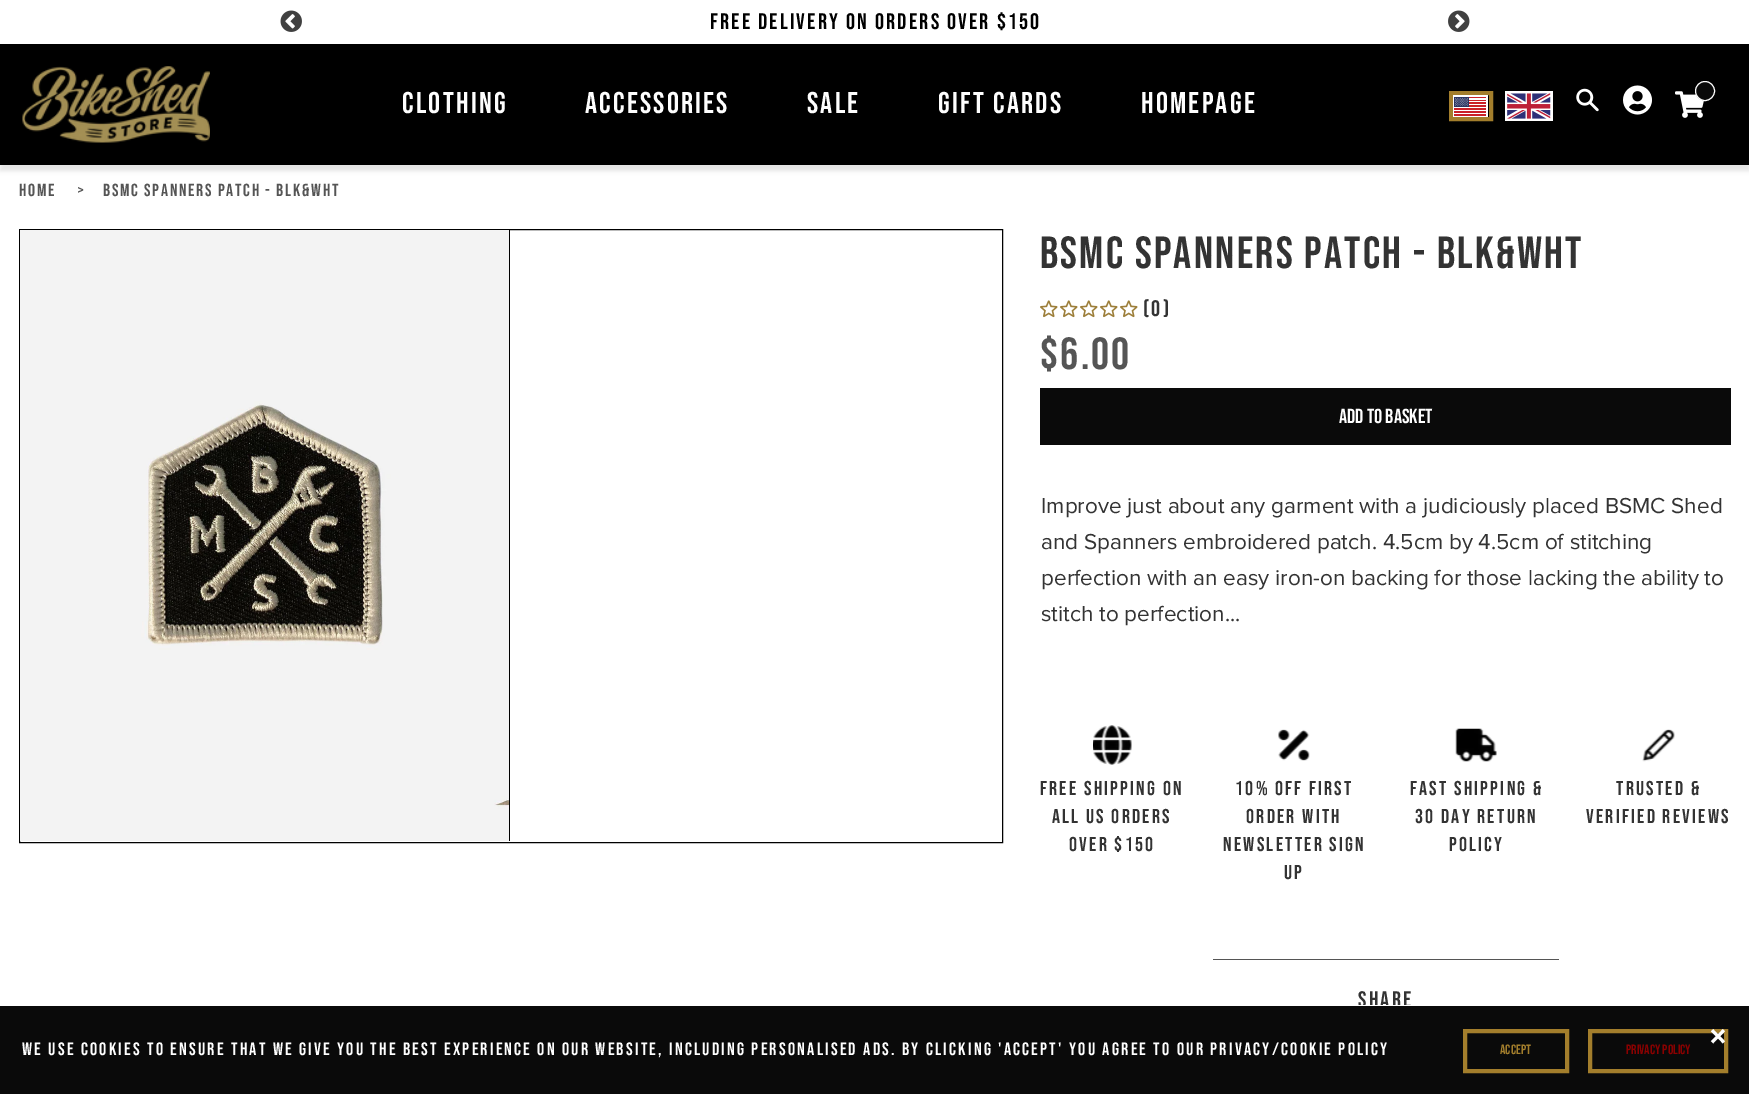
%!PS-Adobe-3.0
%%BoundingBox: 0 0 1749 1094
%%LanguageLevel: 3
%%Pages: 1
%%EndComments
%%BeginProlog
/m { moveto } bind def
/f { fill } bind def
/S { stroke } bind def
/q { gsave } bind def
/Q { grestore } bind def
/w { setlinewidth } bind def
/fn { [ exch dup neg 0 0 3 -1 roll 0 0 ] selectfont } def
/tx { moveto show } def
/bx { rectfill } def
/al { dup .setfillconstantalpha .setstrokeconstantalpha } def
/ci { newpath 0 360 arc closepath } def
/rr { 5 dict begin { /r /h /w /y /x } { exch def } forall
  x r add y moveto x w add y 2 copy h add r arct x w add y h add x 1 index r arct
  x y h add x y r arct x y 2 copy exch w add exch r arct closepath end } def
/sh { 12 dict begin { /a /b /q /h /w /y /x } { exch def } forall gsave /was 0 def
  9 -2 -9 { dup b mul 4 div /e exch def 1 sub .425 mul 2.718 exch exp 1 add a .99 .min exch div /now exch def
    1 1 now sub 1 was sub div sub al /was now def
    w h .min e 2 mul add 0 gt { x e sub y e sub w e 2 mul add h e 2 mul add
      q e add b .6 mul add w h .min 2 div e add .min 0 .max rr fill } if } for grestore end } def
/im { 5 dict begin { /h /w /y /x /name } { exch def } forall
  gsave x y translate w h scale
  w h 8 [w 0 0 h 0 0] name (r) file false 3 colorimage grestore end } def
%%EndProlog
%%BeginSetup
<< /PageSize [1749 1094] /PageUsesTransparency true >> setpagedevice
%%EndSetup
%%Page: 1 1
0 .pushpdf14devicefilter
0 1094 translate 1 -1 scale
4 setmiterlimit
1 setgray
0 0 1749 1094 bx
(image0.raw) 280 10 22 22 im
/BebasNeue-Regular 22.5 fn
0 setgray
710 29 m 2.25 0 (FREE DELIVERY ON ORDERS OVER $150) ashow
(image1.raw) 1448 10 22 22 im
0.039 setgray
0 50 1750 121 0 2 0.1 sh
0 setgray
0 44 1749 121 bx
(image2.raw) 22 66 188 77 im
/BebasNeue-Regular 30 fn
0.996 setgray
402 113 m 2.25 0 (Clothing) ashow
585 113 m 2.25 0 (Accessories) ashow
807 113 m 2.25 0 (Sale) ashow
938 113 m 2.25 0 (Gift Cards) ashow
1141 113 m 2.25 0 (Homepage) ashow
0.639 0.494 0.173 setrgbcolor
4 w
1451 93 40 26 rectstroke
(image3.raw) 1453 95 35 22 im
(image4.raw) 1505 91 48 30 im
(image5.raw) 1576 88 23 24 im
(image6.raw) 1623 85 29 30 im
(image7.raw) 1675 91 29 27 im
0.039 setgray
1705 91 9.5 ci q f Q
0.996 setgray
1 w
S
/BebasNeue-Regular 17.5 fn
0.333 setgray
19 196 m 1.75 0 (HOME) ashow
77 196 m 1.75 0 (>) ashow
103 196 m 1.75 0 (BSMC SPANNERS PATCH - BLK&WHT) ashow
0 setgray
19.5 229.5 983 613 rectstroke
509 230 1 611 bx
(image8.raw) 20 230 489 611 im
/BebasNeue-Regular 45 fn
0.2 setgray
1040 268 m 2.25 0 (BSMC SPANNERS PATCH - BLK&WHT) ashow
(image9.raw) 1040 300 18 18 im
(image9.raw) 1060 300 18 18 im
(image9.raw) 1080 300 18 18 im
(image9.raw) 1100 300 18 18 im
(image9.raw) 1120 300 18 18 im
/BebasNeue-Regular 22.5 fn
1143 316 m 2.25 0 (\(0\)) ashow
/BebasNeue-Regular 45 fn
0.333 setgray
1040 369 m 2.25 0 ($6.00) ashow
0.039 setgray
1040 388 691 57 bx
/BebasNeue-Regular 20.25 fn
0.996 setgray
(ADD TO BASKET) 1339 423 tx
/ProximaNova-Regular 22.5 fn
0.2 setgray
(Improve just about any garment with a judiciously placed BSMC Shed) 1041 513 tx
(and Spanners embroidered patch. 4.5cm by 4.5cm of stitching) 1041 549 tx
(perfection with an easy iron-on backing for those lacking the ability to) 1041 585 tx
(stitch to perfection...) 1041 621 tx
(image10.raw) 1093 725 39 40 im
/BebasNeue-Regular 20 fn
1040 795 m 2.25 0 (FREE SHIPPING on) ashow
1052 823 m 2.25 0 (all US Orders) ashow
1069 851 m 2.25 0 (Over $150) ashow
(image11.raw) 1278 729 32 32 im
1235 795 m 2.25 0 (10% OFF First) ashow
1246 823 m 2.25 0 (Order with) ashow
1223 851 m 2.25 0 (Newsletter Sign) ashow
1284 879 m 2.25 0 (Up) ashow
(image12.raw) 1455 728 42 34 im
1410 795 m 2.25 0 (Fast Shipping &) ashow
1415 823 m 2.25 0 (30 Day Return) ashow
1449 851 m 2.25 0 (Policy) ashow
(image13.raw) 1642 729 33 33 im
1616 795 m 2.25 0 (Trusted &) ashow
1586 823 m 2.25 0 (Verified Reviews) ashow
0.333 setgray
1213 959 346 1 bx
/BebasNeue-Regular 22.5 fn
0.2 setgray
1358 1007 m 2.25 0 (Share) ashow
0.039 setgray
0 1006 1749 88 bx
0.996 setgray
1358 1005 53 1 bx
0.639 0.494 0.173 setrgbcolor
4 w
1590 1031 136 40 rectstroke
/BebasNeue-Regular 45 fn
0.996 setgray
(×) 1709 1052 tx
/BebasNeue-Regular 18 fn
22 1055 m 2.25 0 (We use cookies to ensure that we give you the best experience on our website, including personalised ads. By clicking 'Accept' you agree to our Privacy/Cookie Policy) ashow
0.639 0.494 0.173 setrgbcolor
1465 1031 102 40 rectstroke
/BebasNeue-Regular 13.5 fn
(Accept) 1500 1054 tx
0.545 0 0 setrgbcolor
(Privacy Policy) 1626 1054 tx
.poppdf14devicefilter showpage
%%EOF
